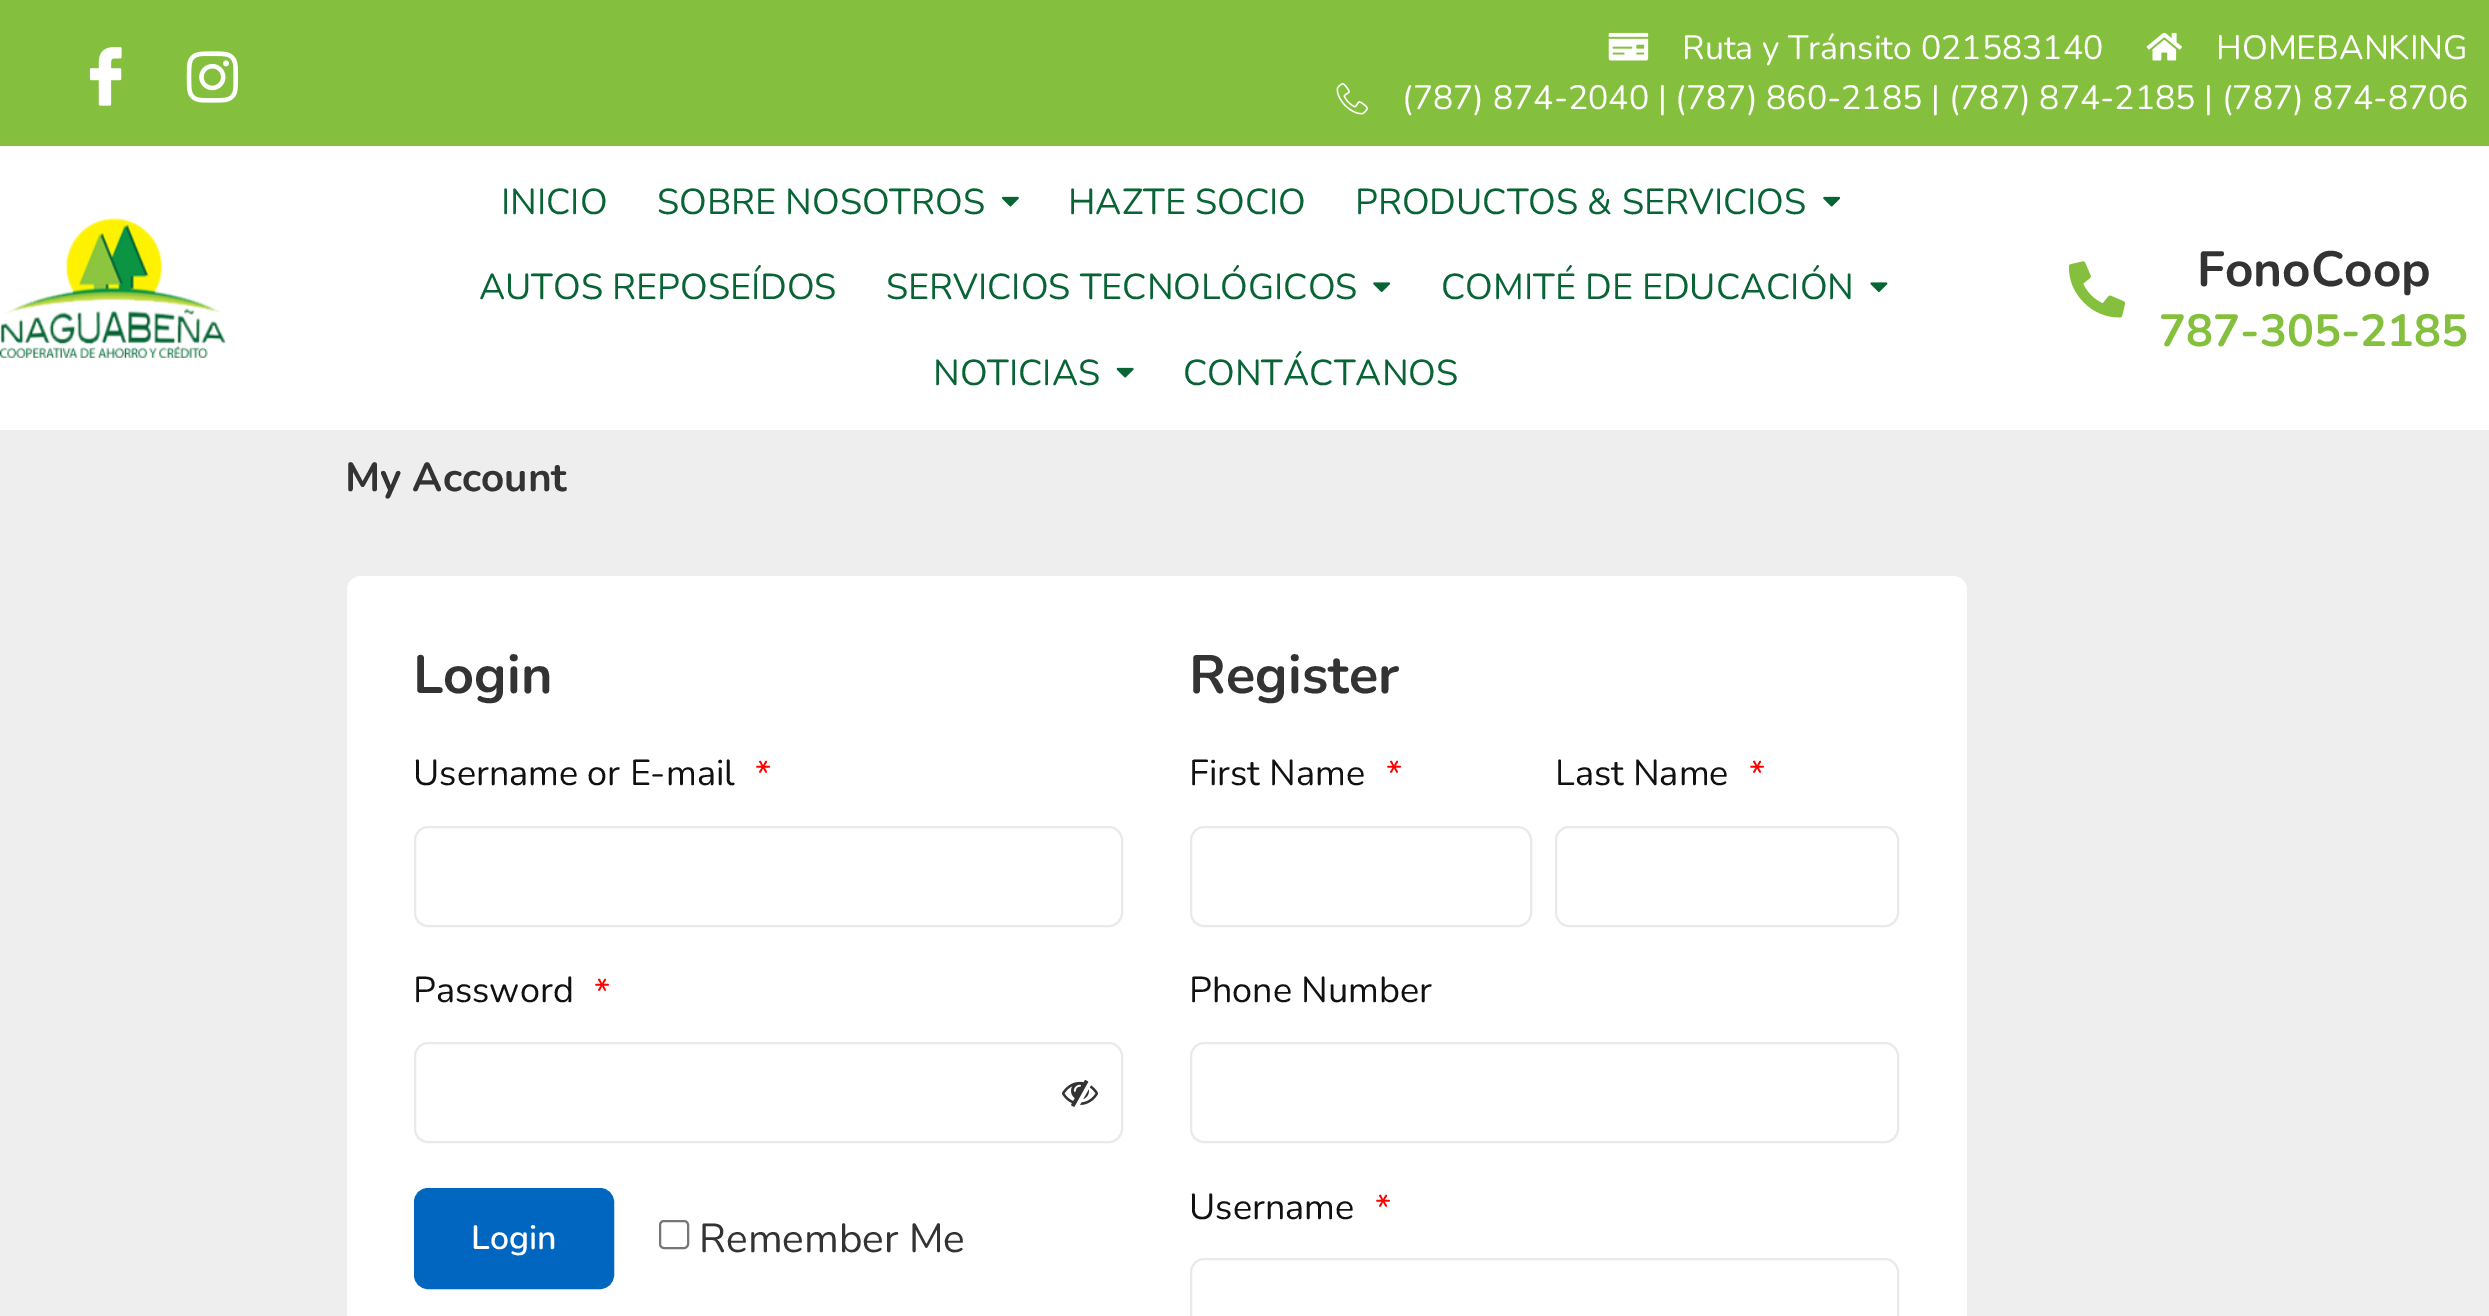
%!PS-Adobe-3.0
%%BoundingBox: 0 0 2489 1316
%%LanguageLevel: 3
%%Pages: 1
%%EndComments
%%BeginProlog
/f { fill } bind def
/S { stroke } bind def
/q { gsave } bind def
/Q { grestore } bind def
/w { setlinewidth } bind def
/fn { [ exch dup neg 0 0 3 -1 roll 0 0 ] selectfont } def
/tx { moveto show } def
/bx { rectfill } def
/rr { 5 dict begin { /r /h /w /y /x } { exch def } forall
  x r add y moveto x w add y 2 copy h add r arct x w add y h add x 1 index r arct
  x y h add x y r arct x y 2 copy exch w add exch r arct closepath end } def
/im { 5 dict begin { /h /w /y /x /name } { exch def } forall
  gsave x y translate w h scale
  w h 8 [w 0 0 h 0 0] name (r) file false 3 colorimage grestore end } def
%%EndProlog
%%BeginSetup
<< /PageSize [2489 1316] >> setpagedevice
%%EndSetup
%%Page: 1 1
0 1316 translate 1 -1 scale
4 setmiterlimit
0.933 setgray
0 0 2489 1316 bx
0.518 0.753 0.239 setrgbcolor
0 0 2489 146 bx
(image0.raw) 89 47 33 59 im
(image1.raw) 186 51 53 52 im
(image2.raw) 1608 32 41 29 im
/Nunito-Regular 33.75 fn
1 setgray
(Ruta y Tránsito 021583140) 1682 59 tx
(image3.raw) 2146 32 36 29 im
(HOMEBANKING) 2216 59 tx
(image4.raw) 1336 83 32 32 im
(\(787\) 874-2040 | \(787\) 860-2185 | \(787\) 874-2185 | \(787\) 874-8706) 1402 109 tx
0 146 2489 284 bx
(image5.raw) 0 218 227 140 im
/Nunito-Regular 36 fn
0.031 0.392 0.208 setrgbcolor
(INICIO) 501 214 tx
(SOBRE NOSOTROS) 657 214 tx
(image6.raw) 1001 196 18 11 im
(HAZTE SOCIO) 1068 214 tx
(PRODUCTOS & SERVICIOS) 1355 214 tx
(image7.raw) 1823 196 18 11 im
(AUTOS REPOSEÍDOS) 479 299 tx
(SERVICIOS TECNOLÓGICOS) 886 299 tx
(image8.raw) 1373 282 18 10 im
(COMITÉ DE EDUCACIÓN) 1441 299 tx
(image9.raw) 1870 282 18 10 im
(NOTICIAS) 933 385 tx
(image10.raw) 1116 367 18 11 im
(CONTÁCTANOS) 1183 385 tx
(image11.raw) 2068 261 58 57 im
/Nunito-Bold 49.5 fn
0.2 setgray
(FonoCoop) 2197 286 tx
/Nunito-Bold 45 fn
0.518 0.753 0.239 setrgbcolor
(787-305-2185) 2159 346 tx
/Nunito-Bold 40.5 fn
0.2 setgray
(My Account) 345 491 tx
1 setgray
347 576 1620 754 14 rr f
/Nunito-Bold 54 fn
0.2 setgray
(Login) 413 693 tx
/Nunito-Regular 36 fn
0.067 setgray
(Username or E-mail) 413 785 tx
1 0 0 setrgbcolor
(*) 755 786 tx
0.918 setgray
2 w
415 827 707 99 13 rr S
0.067 setgray
(Password) 413 1002 tx
1 0 0 setrgbcolor
(*) 594 1004 tx
0.918 setgray
415 1043 707 99 13 rr S
(image12.raw) 1062 1080 36 27 im
0 0.4 0.749 setrgbcolor
415 1189 198 99 13 rr q f Q
S
/Nunito-SemiBold 33.75 fn
1 setgray
(Login) 471 1249 tx
0.463 setgray
660 1221 28 27 4 rr S
/Nunito-Regular 40.5 fn
0.2 setgray
(Remember Me) 699 1252 tx
/Nunito-Bold 54 fn
(Register) 1189 693 tx
/Nunito-Regular 36 fn
0.067 setgray
(First Name) 1189 785 tx
1 0 0 setrgbcolor
(*) 1386 786 tx
0.918 setgray
1191 827 340 99 13 rr S
0.067 setgray
(Last Name) 1555 785 tx
1 0 0 setrgbcolor
(*) 1749 786 tx
0.918 setgray
1556 827 342 99 13 rr S
0.067 setgray
(Phone Number) 1189 1002 tx
0.918 setgray
1191 1043 707 99 13 rr S
0.067 setgray
(Username) 1189 1219 tx
1 0 0 setrgbcolor
(*) 1375 1220 tx
0.918 setgray
1191 1259 707 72 13 rr S
showpage
%%EOF
